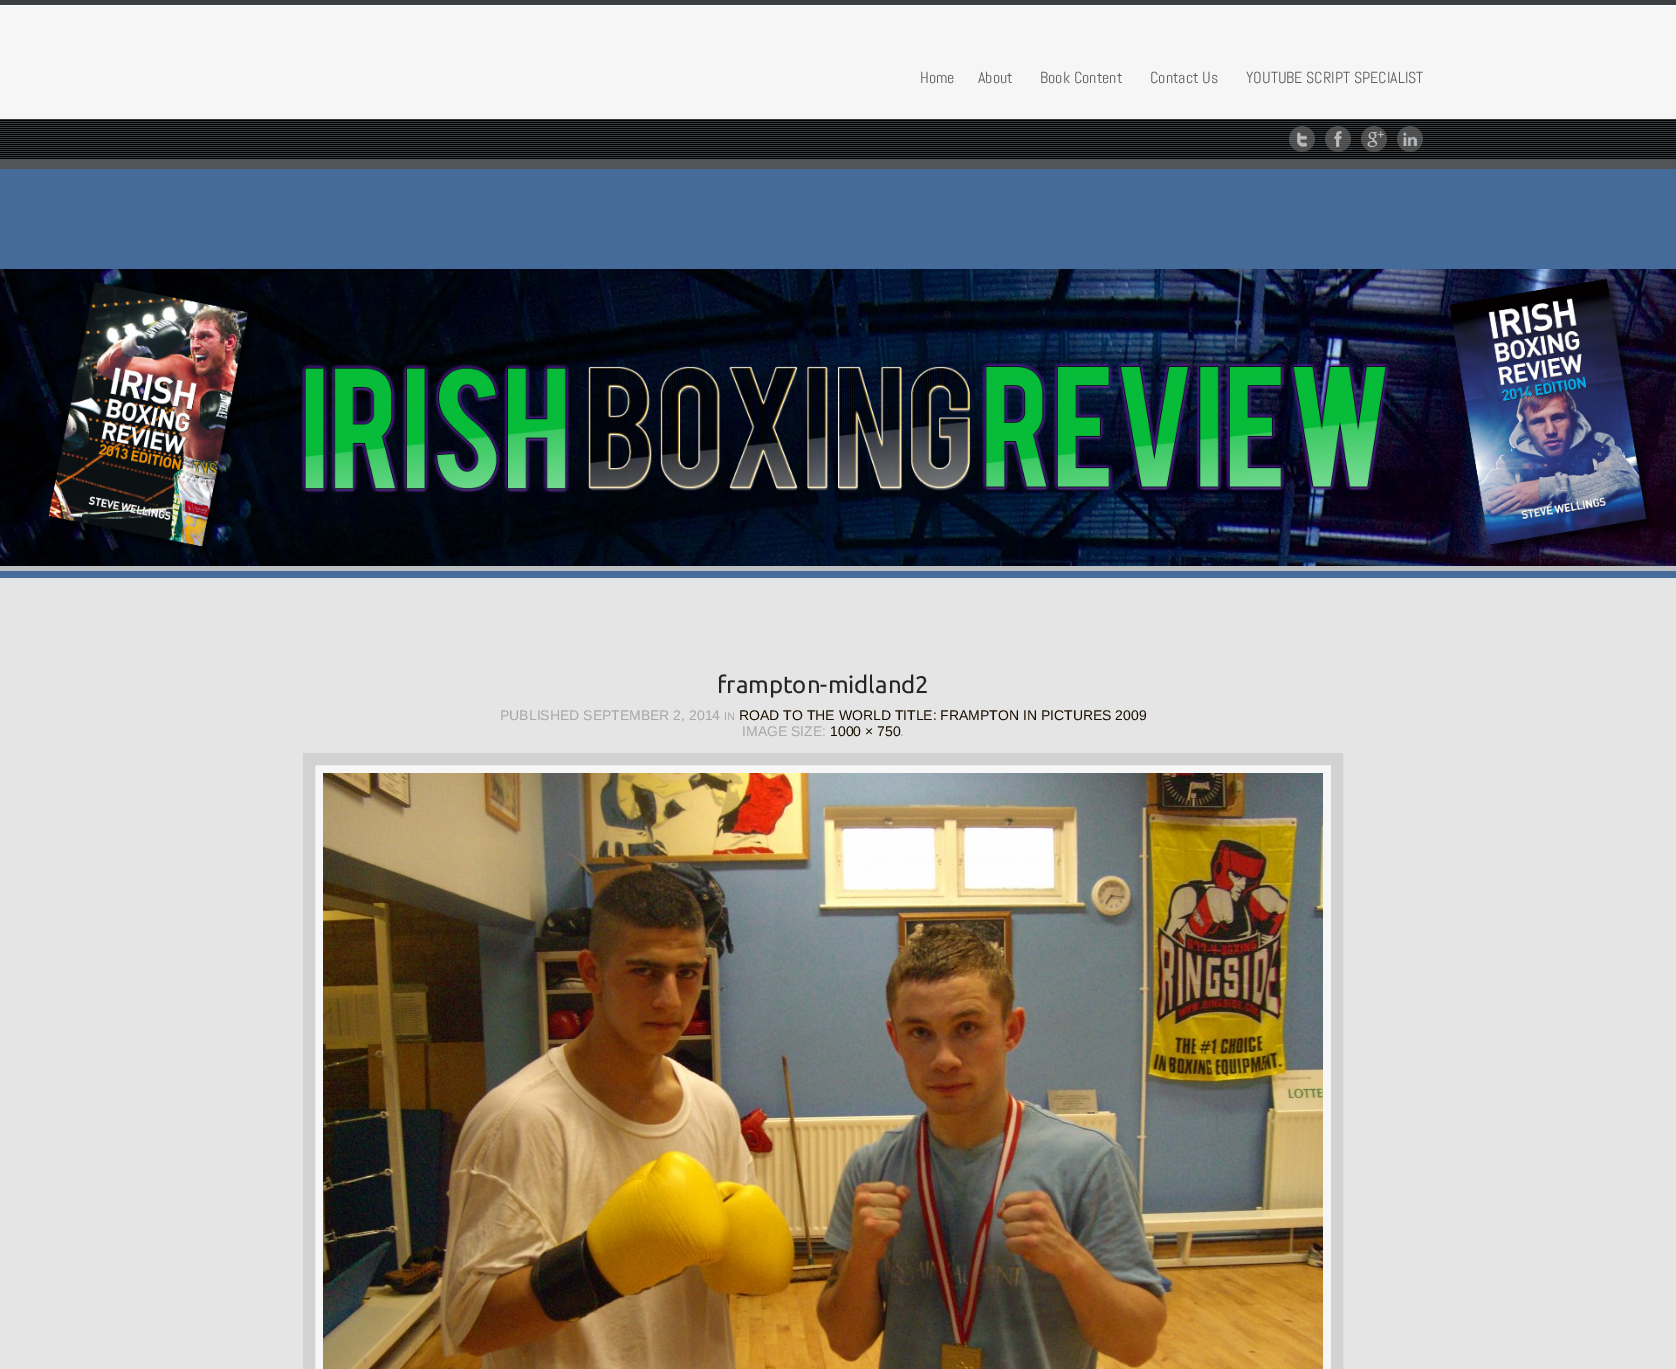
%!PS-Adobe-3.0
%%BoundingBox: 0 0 1676 1369
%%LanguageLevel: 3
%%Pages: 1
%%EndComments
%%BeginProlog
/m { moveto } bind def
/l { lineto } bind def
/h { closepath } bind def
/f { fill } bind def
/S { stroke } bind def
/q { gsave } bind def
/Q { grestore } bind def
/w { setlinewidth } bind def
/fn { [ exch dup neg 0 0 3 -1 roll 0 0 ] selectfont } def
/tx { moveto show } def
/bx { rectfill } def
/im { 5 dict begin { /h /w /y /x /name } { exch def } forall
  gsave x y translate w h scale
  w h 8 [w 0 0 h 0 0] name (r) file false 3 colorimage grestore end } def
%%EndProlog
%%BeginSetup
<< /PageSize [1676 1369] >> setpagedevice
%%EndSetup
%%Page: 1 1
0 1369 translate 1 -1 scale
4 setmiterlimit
0.235 0.247 0.255 setrgbcolor
0 0 1676 1369 bx
0.965 setgray
0 6 1676 113 bx
1 setgray
0 5 1676 1 bx
/Abel-Regular 16 fn
0.369 setgray
(Home) 920 83 tx
(About) 978 83 tx
(Book Content) 1040 83 tx
(Contact Us) 1150 83 tx
(YOUTUBE SCRIPT SPECIALIST) 1246 83 tx
0.224 0.235 0.247 setrgbcolor
0 119 1676 39 bx
(image0.raw) 0 120 1676 39 im
(image1.raw) 1289 126 26 26 im
(image2.raw) 1325 126 26 26 im
(image3.raw) 1361 126 26 26 im
(image4.raw) 1397 126 26 26 im
0.267 0.42 0.604 setrgbcolor
0 169 1676 409 bx
0.322 0.329 0.345 setrgbcolor
0 159 1676 10 bx
0.737 0.753 0.765 setrgbcolor
0 566 1676 5 bx
(image5.raw) 0 269 1676 297 im
0.898 setgray
0 578 1676 791 bx
/Ubuntu-Regular 24 fn
0.145 setgray
(frampton-midland2) 717 693 tx
/LiberationSans-Regular 14 fn
0.651 0.659 0.647 setrgbcolor
(PUBLISHED SEPTEMBER 2, 2014) 500 720 tx
/LiberationSans-Regular 11 fn
(IN) 724 720 tx
/LiberationSans-Regular 14 fn
0.098 0.055 0 setrgbcolor
(ROAD TO THE WORLD TITLE: FRAMPTON IN PICTURES 2009) 739 720 tx
0.651 0.659 0.647 setrgbcolor
(IMAGE SIZE:) 742 736 tx
0.098 0.055 0 setrgbcolor
(1000 × 750) 830 736 tx
0.651 0.659 0.647 setrgbcolor
(.) 900 736 tx
0.965 setgray
309 759 m 1337 759 l 1337 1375 l 309 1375 l h q f Q
0.824 setgray
12 w
S
(image6.raw) 323 773 1000 596 im
showpage
%%EOF
